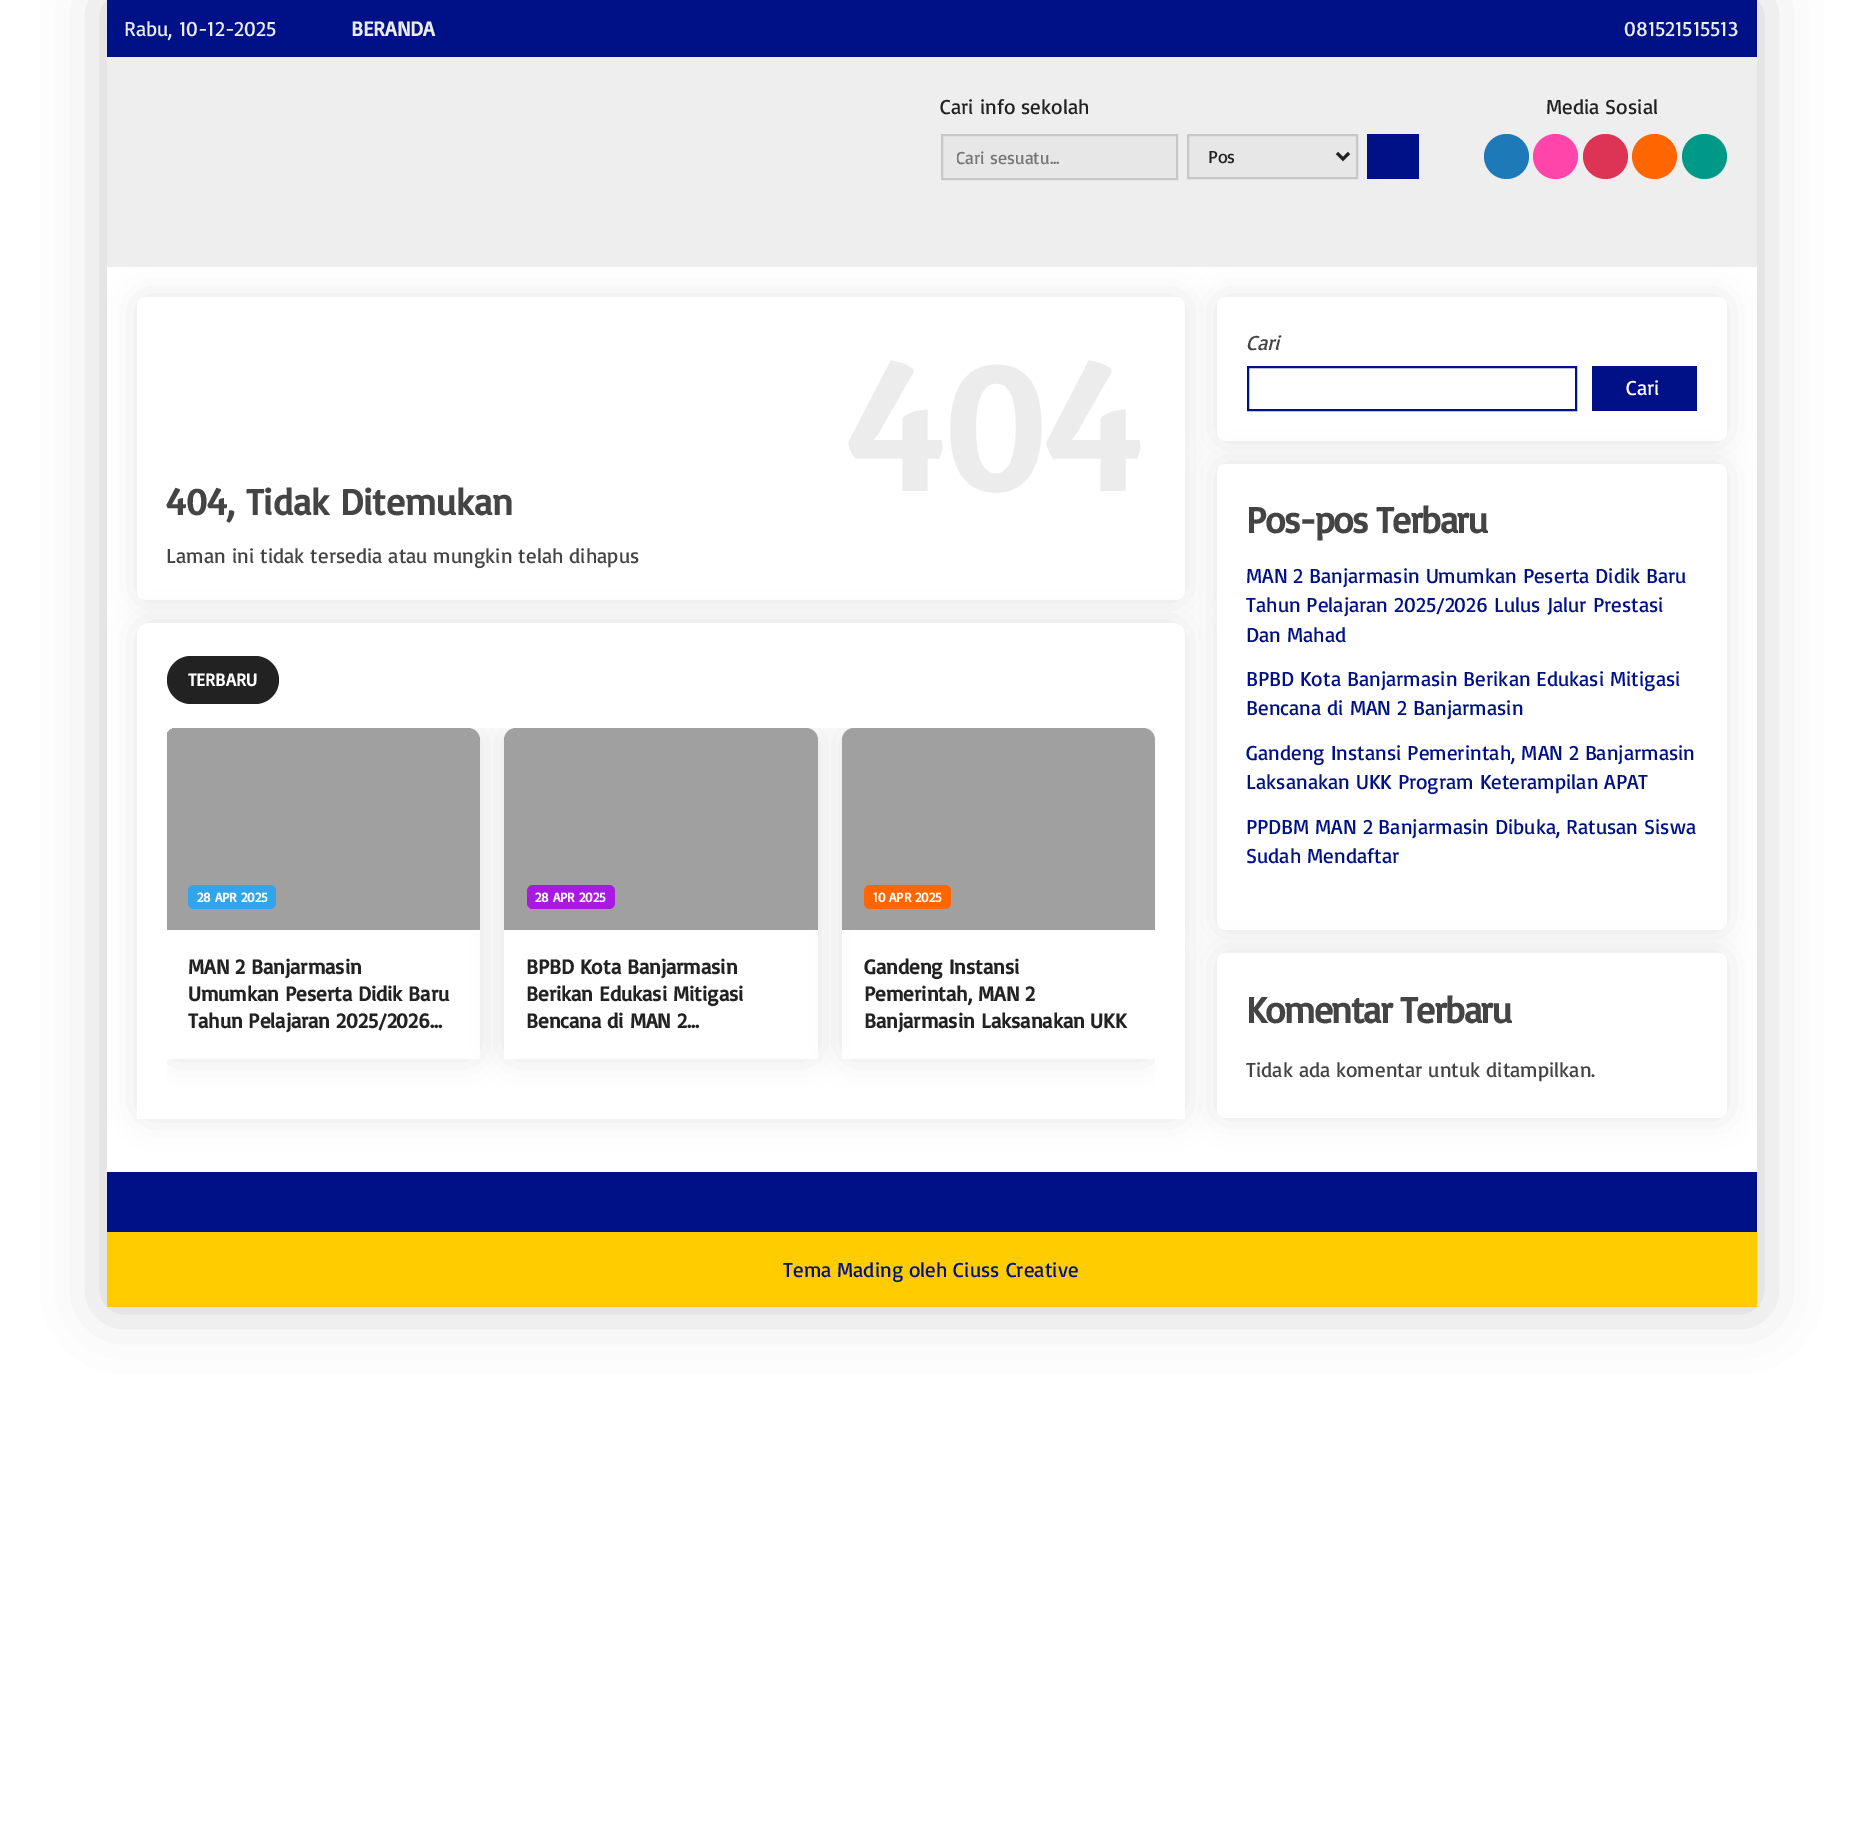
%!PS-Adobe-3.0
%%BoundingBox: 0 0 1861 1836
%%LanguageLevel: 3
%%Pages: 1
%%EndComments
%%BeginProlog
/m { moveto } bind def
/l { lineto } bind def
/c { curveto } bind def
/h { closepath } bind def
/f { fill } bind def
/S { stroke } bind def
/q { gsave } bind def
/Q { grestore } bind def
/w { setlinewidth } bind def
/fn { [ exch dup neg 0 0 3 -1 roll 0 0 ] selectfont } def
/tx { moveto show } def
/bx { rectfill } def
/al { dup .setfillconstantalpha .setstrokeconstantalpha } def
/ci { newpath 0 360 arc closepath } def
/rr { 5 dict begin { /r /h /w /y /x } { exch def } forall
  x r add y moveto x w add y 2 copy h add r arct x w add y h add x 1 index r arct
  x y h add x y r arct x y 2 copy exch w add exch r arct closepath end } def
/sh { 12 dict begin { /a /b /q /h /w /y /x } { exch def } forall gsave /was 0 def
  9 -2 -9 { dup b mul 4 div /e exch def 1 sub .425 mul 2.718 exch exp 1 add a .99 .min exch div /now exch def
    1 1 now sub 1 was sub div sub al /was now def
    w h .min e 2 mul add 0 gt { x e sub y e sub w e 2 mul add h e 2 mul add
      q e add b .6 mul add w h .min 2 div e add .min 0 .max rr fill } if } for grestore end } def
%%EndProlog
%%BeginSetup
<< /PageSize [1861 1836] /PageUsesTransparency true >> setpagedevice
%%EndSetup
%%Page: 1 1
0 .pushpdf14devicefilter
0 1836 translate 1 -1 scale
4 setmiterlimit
1 setgray
0 0 1861 1836 bx
0 setgray
107 0 1650 1307 0 30 0.2 sh
1 setgray
107 267 1650 905 bx
0 0.067 0.533 setrgbcolor
107 0 1650 57 bx
/Basic-Regular 21 fn
0.925 setgray
(Rabu, 10-12-2025) 124 36 tx
/Basic-Bold 21 fn
(BERANDA) 351 36 tx
/Basic-Regular 21 fn
(081521515513) 1624 36 tx
0 setgray
137 297 1048 303 9 15 0.1 sh
1 setgray
137 297 1048 303 9 rr f
0 setgray
1217 297 510 144 9 15 0.1 sh
0.933 setgray
107 57 1650 210 bx
0.133 setgray
(Cari info sekolah) 940 114 tx
0.906 setgray
942 135 m 1177 135 l 1177 179 l 942 179 l h q f Q
0.78 setgray
2 w
S
q
957 146 204 22 rectclip
/Basic-Regular 18 fn
0.459 setgray
(Cari sesuatu...) 956 164 tx
Q
0.906 setgray
1188 135 m 1357 135 l 1357 178 l 1188 178 l h q f Q
0.78 setgray
S
0.133 setgray
3 w
1337 153 m 1343 159 l 1349 153 l S
/Basic-Regular 18 fn
(Pos) 1208 163 tx
0 0.067 0.533 setrgbcolor
1367 134 52 45 bx
/Basic-Regular 21 fn
0.133 setgray
(Media Sosial) 1546 114 tx
0.114 0.475 0.718 setrgbcolor
1506.5 156.5 22.5 ci f
1 0.267 0.667 setrgbcolor
1555.5 156.5 22.5 ci f
0.867 0.2 0.333 setrgbcolor
1605.5 156.5 22.5 ci f
1 0.4 0 setrgbcolor
1654.5 156.5 22.5 ci f
0 0.6 0.533 setrgbcolor
1704.5 156.5 22.5 ci f
/Basic-Bold 180 fn
0.925 setgray
(404) 846 491 tx
/Basic-Bold 37.5 fn
0.267 setgray
(404, Tidak Ditemukan) 166 515 tx
/Basic-Regular 21 fn
(Laman ini tidak tersedia atau mungkin telah dihapus) 166 563 tx
0 setgray
137 623 1048 496 12 15 0.1 sh
1 setgray
149 623 m 1173 623 l 1179.5 623 1185 628.5 1185 635 c 1185 1119 l 137 1119 l 137 635 l 137 628.5 142.5 623 149 623 c h f
q
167 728 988 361 rectclip
0 setgray
165 728 315 331 12 15 0.1 sh
Q
0.133 setgray
167 656 112 48 24 rr f
/Basic-Bold 18 fn
1 setgray
(TERBARU) 188 686 tx
q
167 728 988 361 rectclip
177 728 m 468 728 l 474.5 728 480 733.5 480 740 c 480 1059 l 165 1059 l 165 740 l 165 733.5 170.5 728 177 728 c h f
Q
q
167 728 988 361 rectclip
0 setgray
504 728 314 331 12 15 0.1 sh
Q
q
177 728 m 468 728 l 474.5 728 480 733.5 480 740 c 480 1059 l 165 1059 l 165 740 l 165 733.5 170.5 728 177 728 c h clip newpath
177 728 m 468 728 l 474.5 728 480 733.5 480 740 c 480 930 l 165 930 l 165 740 l 165 733.5 170.5 728 177 728 c h clip newpath
0.627 setgray
167 728 m 468 728 l 474.5 728 480 733.5 480 740 c 480 930 l 167 930 l h f
Q
0.188 0.647 0.925 setrgbcolor
188 885 88 24 6 rr f
/Basic-Bold 13.5 fn
1 setgray
(28 APR 2025) 197 902 tx
/Basic-Bold 21 fn
0.133 setgray
(MAN 2 Banjarmasin) 188 974 tx
(Umumkan Peserta Didik Baru) 188 1001 tx
(Tahun Pelajaran 2025/2026…) 188 1028 tx
1 setgray
516 728 m 806 728 l 812.5 728 818 733.5 818 740 c 818 1059 l 504 1059 l 504 740 l 504 733.5 509.5 728 516 728 c h f
q
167 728 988 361 rectclip
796 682 m 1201 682 l 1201 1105 l 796 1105 l h 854 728 m 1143 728 l 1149.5 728 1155 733.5 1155 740 c 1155 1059 l 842 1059 l 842 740 l 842 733.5 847.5 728 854 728 c h eoclip newpath
0 setgray
842 728 313 331 12 15 0.1 sh
Q
0.627 setgray
516 728 m 806 728 l 812.5 728 818 733.5 818 740 c 818 930 l 504 930 l 504 740 l 504 733.5 509.5 728 516 728 c h f
0.667 0.098 0.875 setrgbcolor
527 885 88 24 6 rr f
/Basic-Bold 13.5 fn
1 setgray
(28 APR 2025) 535 902 tx
/Basic-Bold 21 fn
0.133 setgray
(BPBD Kota Banjarmasin) 526 974 tx
(Berikan Edukasi Mitigasi) 526 1001 tx
(Bencana di MAN 2…) 526 1028 tx
0.627 setgray
854 728 m 1143 728 l 1149.5 728 1155 733.5 1155 740 c 1155 930 l 842 930 l 842 740 l 842 733.5 847.5 728 854 728 c h f
1 0.4 0 setrgbcolor
864 885 87 24 6 rr f
/Basic-Bold 13.5 fn
1 setgray
(10 APR 2025) 873 902 tx
/Basic-Bold 21 fn
0.133 setgray
(Gandeng Instansi) 864 974 tx
(Pemerintah, MAN 2) 864 1001 tx
(Banjarmasin Laksanakan UKK) 864 1028 tx
1 setgray
1217 297 510 144 9 rr f
/Basic-Italic 21 fn
0.267 setgray
(Cari) 1246 350 tx
0 0.067 0.533 setrgbcolor
2 w
1248 367 328 43 rectstroke
1592 366 105 45 bx
/Basic-Regular 21 fn
1 setgray
(Cari) 1626 395 tx
0 setgray
1217 464 510 466 9 15 0.1 sh
1 setgray
1217 464 510 466 9 rr f
/Basic-Bold 37.5 fn
0.267 setgray
1246 533 m -1.5 0 (Pos-pos Terbaru) ashow
/Basic-Regular 21 fn
0 0.067 0.533 setrgbcolor
(MAN 2 Banjarmasin Umumkan Peserta Didik Baru) 1246 583 tx
(Tahun Pelajaran 2025/2026 Lulus Jalur Prestasi) 1246 612 tx
(Dan Mahad) 1246 642 tx
(BPBD Kota Banjarmasin Berikan Edukasi Mitigasi) 1246 686 tx
(Bencana di MAN 2 Banjarmasin) 1246 715 tx
(Gandeng Instansi Pemerintah, MAN 2 Banjarmasin) 1246 760 tx
(Laksanakan UKK Program Keterampilan APAT) 1246 789 tx
(PPDBM MAN 2 Banjarmasin Dibuka, Ratusan Siswa) 1246 834 tx
(Sudah Mendaftar) 1246 863 tx
0 setgray
1217 953 510 165 9 15 0.1 sh
1 setgray
1217 953 510 165 9 rr f
/Basic-Bold 37.5 fn
0.267 setgray
1246 1023 m -1.5 0 (Komentar Terbaru) ashow
/Basic-Regular 21 fn
(Tidak ada komentar untuk ditampilkan.) 1246 1077 tx
0 0.067 0.533 setrgbcolor
107 1172 1650 60 bx
1 0.8 0 setrgbcolor
107 1232 1650 75 bx
0 0.067 0.533 setrgbcolor
(Tema Mading oleh Ciuss Creative) 783 1277 tx
.poppdf14devicefilter showpage
%%EOF
